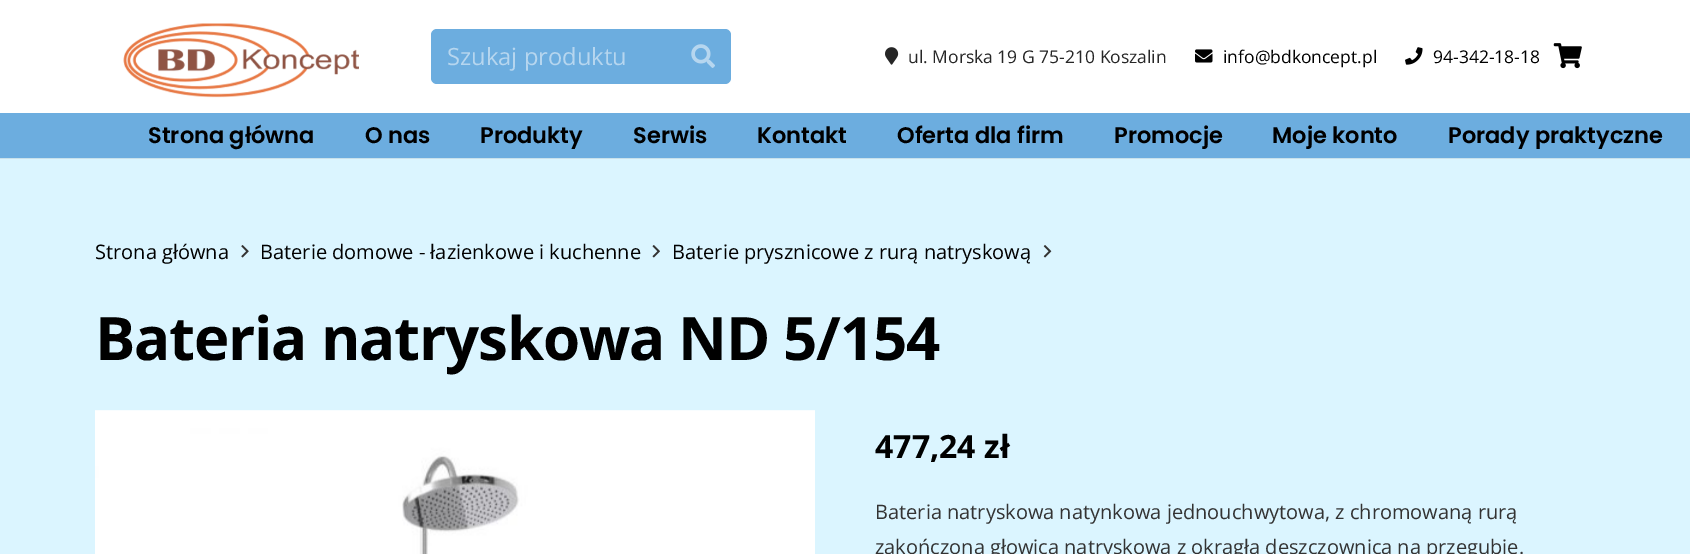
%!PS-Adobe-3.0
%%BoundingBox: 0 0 1690 554
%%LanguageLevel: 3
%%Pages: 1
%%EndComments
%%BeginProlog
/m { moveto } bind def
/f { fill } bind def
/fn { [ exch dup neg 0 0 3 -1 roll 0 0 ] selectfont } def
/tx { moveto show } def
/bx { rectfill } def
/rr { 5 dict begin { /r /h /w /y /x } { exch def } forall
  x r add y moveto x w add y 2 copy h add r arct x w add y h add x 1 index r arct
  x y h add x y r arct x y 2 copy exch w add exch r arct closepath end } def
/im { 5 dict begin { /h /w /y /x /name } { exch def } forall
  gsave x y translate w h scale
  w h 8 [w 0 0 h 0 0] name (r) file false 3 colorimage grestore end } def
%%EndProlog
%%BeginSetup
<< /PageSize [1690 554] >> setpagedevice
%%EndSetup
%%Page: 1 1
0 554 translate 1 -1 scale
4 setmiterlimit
0.859 0.961 1 setrgbcolor
0 0 1690 554 bx
1 setgray
0 0 1690 113 bx
(image0.raw) 123 23 236 75 im
0.424 0.678 0.875 setrgbcolor
431 29 300 55 6 rr f
/OpenSans-Regular 23.75 fn
0.714 0.839 0.937 setrgbcolor
(Szukaj produktu) 447 65 tx
(image1.raw) 691 44 24 24 im
(image2.raw) 885 47 14 18 im
/OpenSans-Regular 17.5 fn
0.149 setgray
(ul. Morska 19 G 75-210 Koszalin) 908 63 tx
(image3.raw) 1195 49 18 14 im
0 setgray
(info@bdkoncept.pl) 1223 63 tx
(image4.raw) 1405 47 18 18 im
(94-342-18-18) 1433 63 tx
(image5.raw) 1553 43 29 26 im
0.788 0.882 0.922 setrgbcolor
0 158 1690 1 bx
0.424 0.678 0.875 setrgbcolor
0 113 1690 45 bx
/Poppins-SemiBold 22.5 fn
0 setgray
(Strona główna) 148 143 tx
(O nas) 365 143 tx
(Produkty) 480 143 tx
(Serwis) 633 143 tx
(Kontakt) 757 143 tx
(Oferta dla firm) 897 143 tx
(Promocje) 1114 143 tx
(Moje konto) 1272 143 tx
(Porady praktyczne) 1448 143 tx
/OpenSans-Regular 20 fn
(Strona główna) 95 259 tx
(image6.raw) 241 245 8 13 im
(Baterie domowe - łazienkowe i kuchenne) 260 259 tx
(image7.raw) 652 245 8 13 im
(Baterie prysznicowe z rurą natryskową) 672 259 tx
(image8.raw) 1043 245 9 13 im
/OpenSans-Bold 60 fn
95 360 m -1.2 0 (Bateria natryskowa ND 5/154) ashow
(image9.raw) 95 410 720 144 im
/OpenSans-Bold 32 fn
(477,24 zł) 875 458 tx
/OpenSans-Regular 20 fn
0.2 setgray
(Bateria natryskowa natynkowa jednouchwytowa, z chromowaną rurą) 875 519 tx
(zakończoną głowicą natryskową z okrągłą deszczownicą na przegubie.) 875 554 tx
showpage
%%EOF
